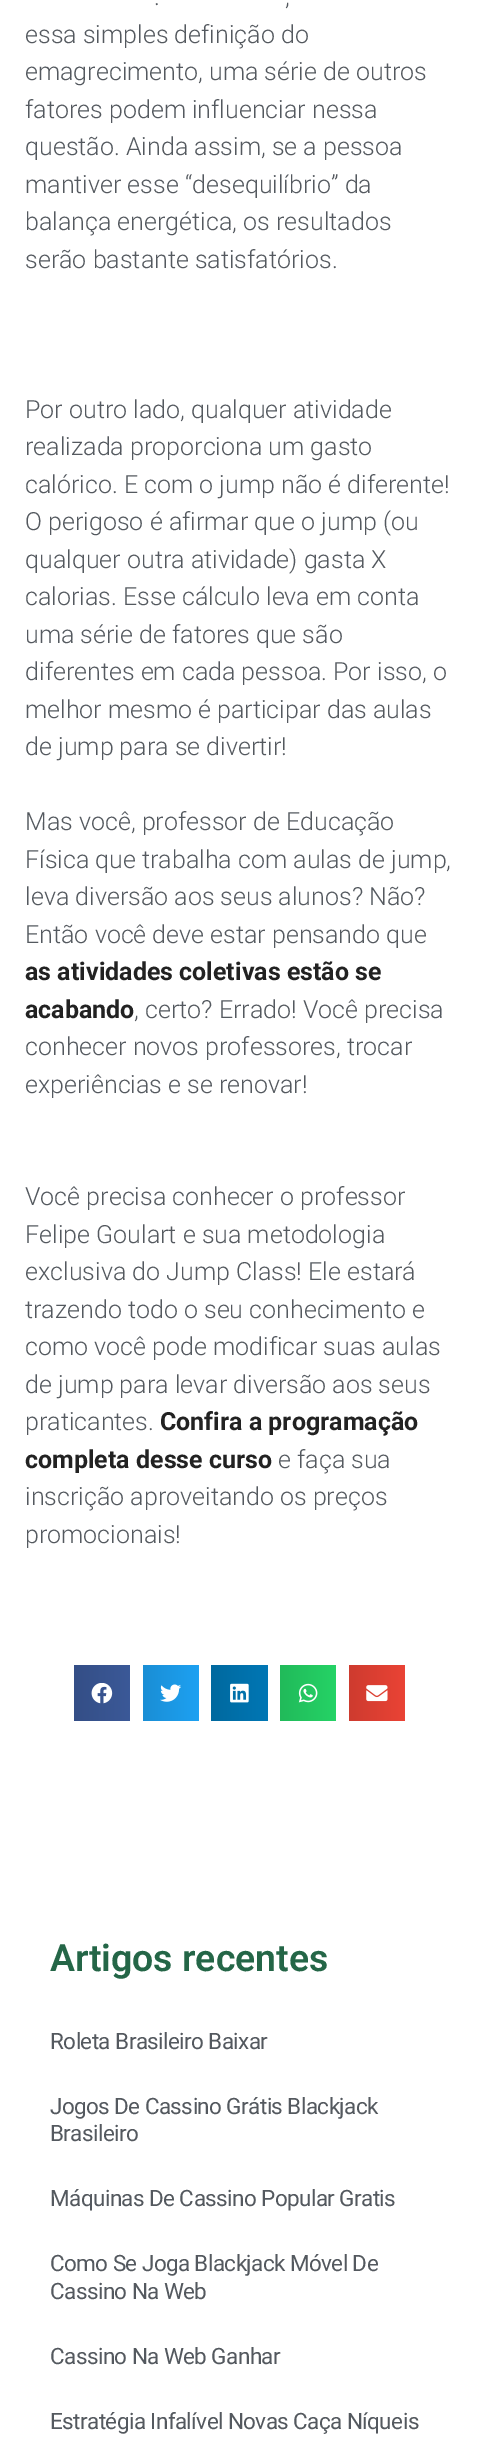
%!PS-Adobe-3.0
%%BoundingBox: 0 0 477 2448
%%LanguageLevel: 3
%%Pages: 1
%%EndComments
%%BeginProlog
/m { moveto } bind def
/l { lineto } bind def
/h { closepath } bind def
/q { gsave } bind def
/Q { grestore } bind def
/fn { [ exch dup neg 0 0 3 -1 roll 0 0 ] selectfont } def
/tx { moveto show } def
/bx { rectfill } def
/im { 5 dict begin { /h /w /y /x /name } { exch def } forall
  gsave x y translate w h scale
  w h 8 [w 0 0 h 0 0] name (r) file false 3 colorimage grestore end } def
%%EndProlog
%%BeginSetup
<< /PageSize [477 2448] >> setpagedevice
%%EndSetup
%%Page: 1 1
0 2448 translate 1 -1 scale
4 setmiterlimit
1 setgray
0 0 477 2448 bx
/Roboto-Light 25 fn
0.329 0.349 0.373 setrgbcolor
(.) 154 5 tx
(,) 285 5 tx
(essa simples definição do) 25 43 tx
(emagrecimento, uma série de outros) 25 80 tx
(fatores podem influenciar nessa) 25 118 tx
(questão. Ainda assim, se a pessoa) 25 155 tx
(mantiver esse “desequilíbrio” da) 25 193 tx
(balança energética, os resultados) 25 230 tx
(serão bastante satisfatórios.) 25 268 tx
(Por outro lado, qualquer atividade) 25 418 tx
(realizada proporciona um gasto) 25 455 tx
(calórico. E com o jump não é diferente!) 25 493 tx
(O perigoso é afirmar que o jump \(ou) 25 530 tx
(qualquer outra atividade\) gasta X) 25 568 tx
(calorias. Esse cálculo leva em conta) 25 605 tx
(uma série de fatores que são) 25 643 tx
(diferentes em cada pessoa. Por isso, o) 25 680 tx
(melhor mesmo é participar das aulas) 25 718 tx
(de jump para se divertir!) 25 755 tx
(Mas você, professor de Educação) 25 830 tx
(Física que trabalha com aulas de jump,) 25 868 tx
(leva diversão aos seus alunos? Não?) 25 905 tx
(Então você deve estar pensando que) 25 943 tx
/Roboto-Bold 25 fn
0.133 setgray
(as atividades coletivas estão se) 25 980 tx
(acabando) 25 1018 tx
/Roboto-Light 25 fn
0.329 0.349 0.373 setrgbcolor
(, certo? Errado! Você precisa) 134 1018 tx
(conhecer novos professores, trocar) 25 1055 tx
(experiências e se renovar!) 25 1093 tx
(Você precisa conhecer o professor) 25 1205 tx
(Felipe Goulart e sua metodologia) 25 1243 tx
(exclusiva do Jump Class! Ele estará) 25 1280 tx
(trazendo todo o seu conhecimento e) 25 1318 tx
(como você pode modificar suas aulas) 25 1355 tx
(de jump para levar diversão aos seus) 25 1393 tx
(praticantes.) 25 1430 tx
/Roboto-Bold 25 fn
0.133 setgray
(Confira a programação) 160 1430 tx
(completa desse curso) 25 1468 tx
/Roboto-Light 25 fn
0.329 0.349 0.373 setrgbcolor
(e faça sua) 278 1468 tx
(inscrição aproveitando os preços) 25 1505 tx
(promocionais!) 25 1543 tx
q 74 1665 m 130 1665 l 130 1721 l 74 1721 l h clip newpath
<< /ShadingType 2 /ColorSpace /DeviceRGB /Coords [74 1693 130 1693] /Extend [true true] /Function << /FunctionType 2 /Domain [0 1] /C0 [0.204 0.306 0.525] /C1 [0.231 0.349 0.596] /N 1 >> >> shfill Q
(image0.raw) 91 1683 22 21 im
q 143 1665 m 199 1665 l 199 1721 l 143 1721 l h clip newpath
<< /ShadingType 2 /ColorSpace /DeviceRGB /Coords [143 1693 199 1693] /Extend [true true] /Function << /FunctionType 2 /Domain [0 1] /C0 [0.102 0.557 0.835] /C1 [0.114 0.631 0.949] /N 1 >> >> shfill Q
(image1.raw) 160 1684 21 18 im
q 211 1665 m 268 1665 l 268 1721 l 211 1721 l h clip newpath
<< /ShadingType 2 /ColorSpace /DeviceRGB /Coords [211 1693 268 1693] /Extend [true true] /Function << /FunctionType 2 /Domain [0 1] /C0 [0 0.412 0.624] /C1 [0 0.467 0.71] /N 1 >> >> shfill Q
(image2.raw) 230 1683 19 20 im
q 280 1665 m 336 1665 l 336 1721 l 280 1721 l h clip newpath
<< /ShadingType 2 /ColorSpace /DeviceRGB /Coords [280 1693 336 1693] /Extend [true true] /Function << /FunctionType 2 /Domain [0 1] /C0 [0.129 0.729 0.353] /C1 [0.145 0.827 0.4] /N 1 >> >> shfill Q
(image3.raw) 298 1683 20 20 im
q 349 1665 m 405 1665 l 405 1721 l 349 1721 l h clip newpath
<< /ShadingType 2 /ColorSpace /DeviceRGB /Coords [349 1693 405 1693] /Extend [true true] /Function << /FunctionType 2 /Domain [0 1] /C0 [0.808 0.231 0.184] /C1 [0.918 0.263 0.208] /N 1 >> >> shfill Q
(image4.raw) 366 1685 22 17 im
/Roboto-SemiBold 37.5 fn
0.141 0.4 0.278 setrgbcolor
(Artigos recentes) 50 1971 tx
/Roboto-Regular 22.5 fn
0.329 0.349 0.373 setrgbcolor
50 2049 m -0.6 0 (Roleta Brasileiro Baixar) ashow
50 2114 m -0.6 0 (Jogos De Cassino Grátis Blackjack) ashow
50 2141 m -0.6 0 (Brasileiro) ashow
50 2206 m -0.6 0 (Máquinas De Cassino Popular Gratis) ashow
50 2271 m -0.6 0 (Como Se Joga Blackjack Móvel De) ashow
50 2299 m -0.6 0 (Cassino Na Web) ashow
50 2364 m -0.6 0 (Cassino Na Web Ganhar) ashow
50 2429 m -0.6 0 (Estratégia Infalível Novas Caça Níqueis) ashow
showpage
%%EOF
